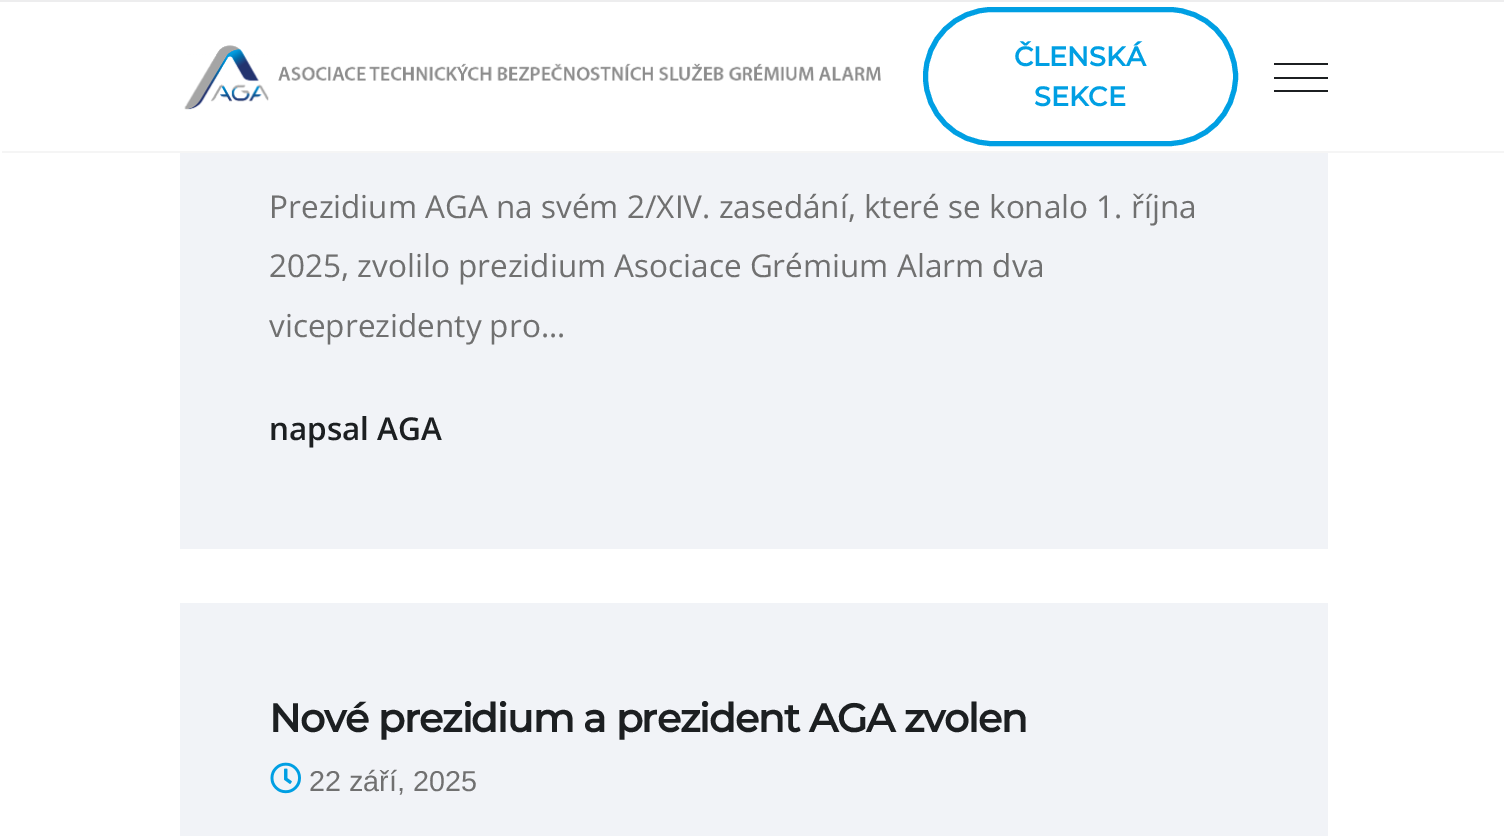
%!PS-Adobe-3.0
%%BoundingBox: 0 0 1504 836
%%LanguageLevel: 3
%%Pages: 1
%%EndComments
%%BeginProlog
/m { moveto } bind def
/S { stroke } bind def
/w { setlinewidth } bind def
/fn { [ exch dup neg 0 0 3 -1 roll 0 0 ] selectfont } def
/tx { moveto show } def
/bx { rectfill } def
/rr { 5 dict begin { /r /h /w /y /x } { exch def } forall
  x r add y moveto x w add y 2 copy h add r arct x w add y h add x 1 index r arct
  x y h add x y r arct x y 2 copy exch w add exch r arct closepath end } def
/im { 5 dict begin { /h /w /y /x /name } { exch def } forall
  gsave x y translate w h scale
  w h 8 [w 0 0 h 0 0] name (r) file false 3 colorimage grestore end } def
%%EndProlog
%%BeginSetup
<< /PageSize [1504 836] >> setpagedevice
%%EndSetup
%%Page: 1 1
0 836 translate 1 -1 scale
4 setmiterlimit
1 setgray
0 0 1504 836 bx
0.929 0.929 0.933 setrgbcolor
0 0 1504 2 bx
(image0.raw) 184 45 697 65 im
0 0.624 0.89 setrgbcolor
5 w
925.5 9.5 310 134 67 rr S
/Montserrat-Bold 27 fn
(ČLENSKÁ) 1014 66 tx
(SEKCE) 1034 106 tx
0.11 0.122 0.129 setrgbcolor
1274 63 54 2 bx
1274 77 54 2 bx
1274 90 54 2 bx
0.961 setgray
2 151 1502 2 bx
0.945 0.953 0.969 setrgbcolor
180 153 1148 396 bx
/OpenSans-Regular 31.5 fn
0.439 setgray
(Prezidium AGA na svém 2/XIV. zasedání, které se konalo 1. října) 269 218 tx
(2025, zvolilo prezidium Asociace Grémium Alarm dva) 269 277 tx
(viceprezidenty pro...) 269 337 tx
/OpenSans-SemiBold 31.5 fn
0.11 0.122 0.129 setrgbcolor
(napsal AGA) 269 440 tx
0.945 0.953 0.969 setrgbcolor
180 603 1148 233 bx
/Montserrat-Bold 39.6 fn
0.11 0.122 0.129 setrgbcolor
269 732 m -1.1 0 (Nové prezidium a prezident AGA zvolen) ashow
(image1.raw) 270 762 31 32 im
/LiberationSans-Regular 28.75 fn
0.439 setgray
(22 září, 2025) 309 791 tx
showpage
%%EOF
